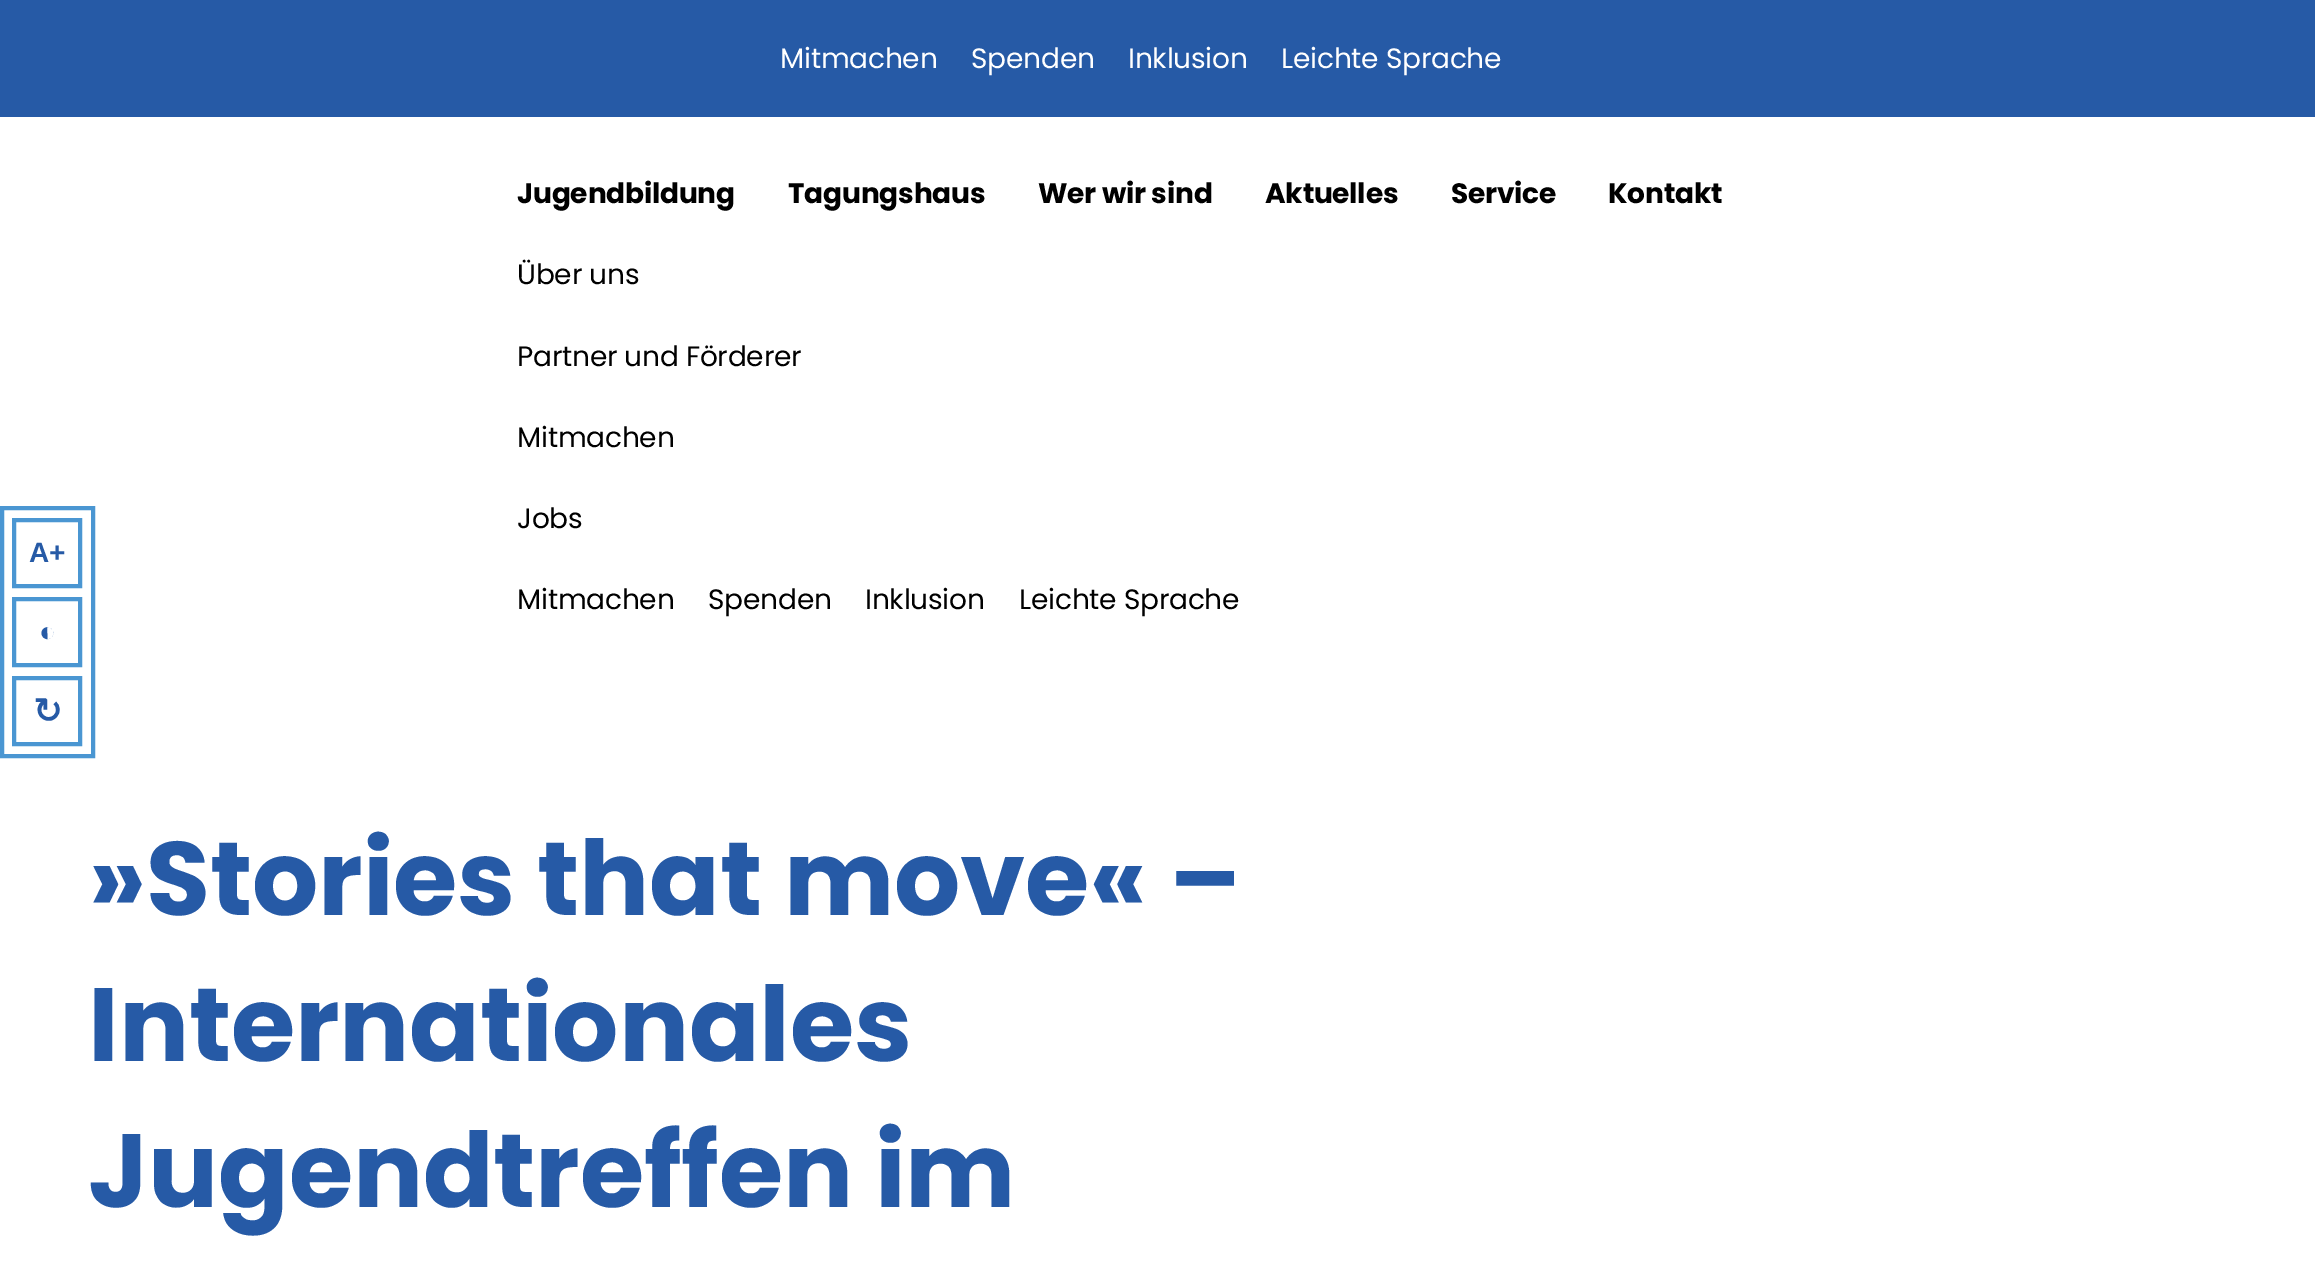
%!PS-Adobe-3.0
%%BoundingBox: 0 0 2315 1263
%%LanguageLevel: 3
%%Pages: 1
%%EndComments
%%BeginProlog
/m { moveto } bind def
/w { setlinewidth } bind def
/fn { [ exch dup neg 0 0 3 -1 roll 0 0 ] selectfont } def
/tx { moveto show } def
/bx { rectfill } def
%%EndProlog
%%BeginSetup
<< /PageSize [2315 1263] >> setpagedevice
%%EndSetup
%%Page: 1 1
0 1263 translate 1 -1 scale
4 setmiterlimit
1 setgray
0 0 2315 1263 bx
0.29 0.588 0.824 setrgbcolor
4 w
2 508 91 248 rectstroke
14 520 66 66 rectstroke
/LiberationSans-Bold 28 fn
0.149 0.353 0.651 setrgbcolor
(A+) 29 562 tx
0.29 0.588 0.824 setrgbcolor
14 599 66 66 rectstroke
0.149 0.353 0.651 setrgbcolor
(◐) 39 641 tx
0.29 0.588 0.824 setrgbcolor
14 678 66 66 rectstroke
/DejaVuSans-Bold 35 fn
0.149 0.353 0.651 setrgbcolor
(↻) 33 723 tx
0 0 2315 117 bx
/Poppins-Regular 28 fn
1 setgray
780 68 m -0.2 0 (Mitmachen) ashow
971 68 m -0.2 0 (Spenden) ashow
1128 68 m -0.2 0 (Inklusion) ashow
1281 68 m -0.2 0 (Leichte Sprache) ashow
/Poppins-Bold 28 fn
0 setgray
517 203 m -0.2 0 (Jugendbildung) ashow
788 203 m -0.2 0 (Tagungshaus) ashow
1038 203 m -0.2 0 (Wer wir sind) ashow
1265 203 m -0.2 0 (Aktuelles) ashow
1451 203 m -0.2 0 (Service) ashow
1608 203 m -0.2 0 (Kontakt) ashow
/Poppins-Regular 28 fn
517 284 m -0.2 0 (Über uns) ashow
517 366 m -0.2 0 (Partner und Förderer) ashow
517 447 m -0.2 0 (Mitmachen) ashow
517 528 m -0.2 0 (Jobs) ashow
517 609 m -0.2 0 (Mitmachen) ashow
708 609 m -0.2 0 (Spenden) ashow
865 609 m -0.2 0 (Inklusion) ashow
1019 609 m -0.2 0 (Leichte Sprache) ashow
/Poppins-Bold 104.25 fn
0.149 0.353 0.651 setrgbcolor
88 915 m -0.2 0 (»Stories that move« –) ashow
88 1061 m -0.2 0 (Internationales) ashow
88 1207 m -0.2 0 (Jugendtreffen im) ashow
showpage
%%EOF
